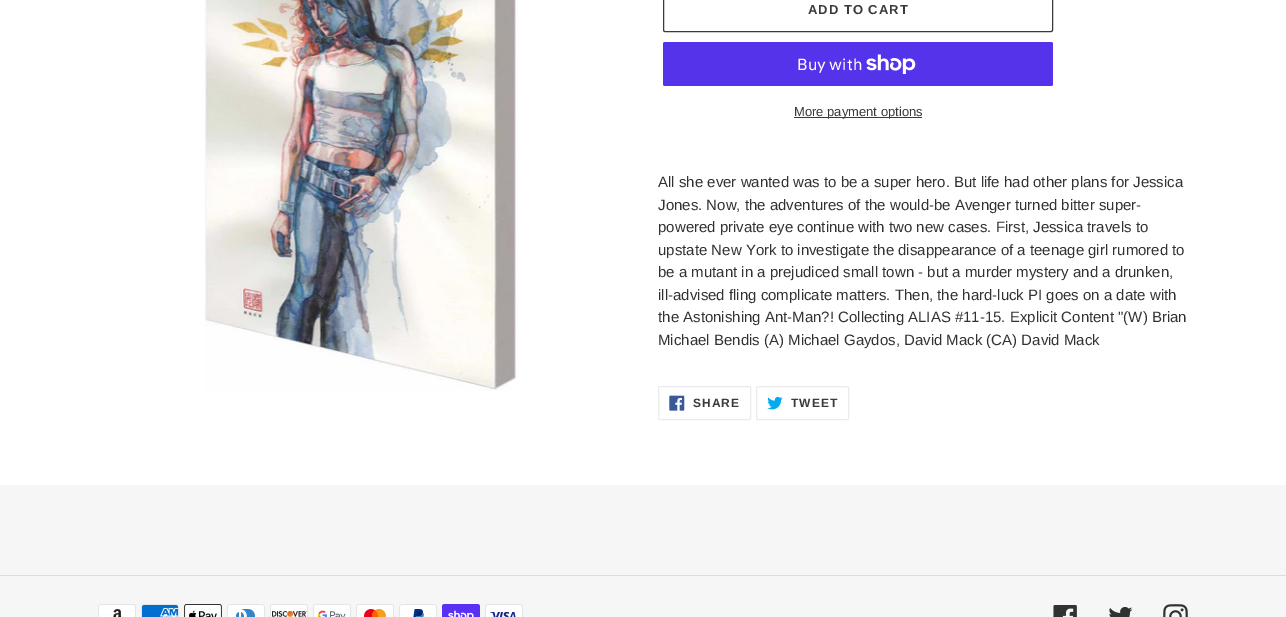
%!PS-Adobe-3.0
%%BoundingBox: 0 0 1286 617
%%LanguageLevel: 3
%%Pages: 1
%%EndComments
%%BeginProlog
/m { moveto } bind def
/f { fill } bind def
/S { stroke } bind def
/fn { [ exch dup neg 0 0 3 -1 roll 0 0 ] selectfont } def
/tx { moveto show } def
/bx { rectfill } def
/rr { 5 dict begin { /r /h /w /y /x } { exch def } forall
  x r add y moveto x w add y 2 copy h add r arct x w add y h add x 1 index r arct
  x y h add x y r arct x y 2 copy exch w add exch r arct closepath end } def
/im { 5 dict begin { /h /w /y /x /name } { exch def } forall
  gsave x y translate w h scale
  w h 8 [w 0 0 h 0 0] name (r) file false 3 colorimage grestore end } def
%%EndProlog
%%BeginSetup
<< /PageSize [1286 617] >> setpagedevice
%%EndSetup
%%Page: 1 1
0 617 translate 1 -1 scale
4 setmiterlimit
1 setgray
0 0 1286 617 bx
(image0.raw) 204 0 314 391 im
0.227 setgray
663.5 -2.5 389 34 1.5 rr S
/LiberationSans-Bold 13 fn
808 14 m 1 0 (ADD TO CART) ashow
0.329 0.2 0.922 setrgbcolor
663 42 390 44 2 rr f
/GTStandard-Regular 16 fn
1 setgray
(Buy with) 797 70 tx
(image1.raw) 866 54 50 20 im
0.227 setgray
794 117 128 1 bx
/LiberationSans-Regular 13 fn
(More payment options) 794 116 tx
/LiberationSans-Regular 15 fn
0.2 0.196 0.196 setrgbcolor
(All she ever wanted was to be a super hero. But life had other plans for Jessica) 658 187 tx
(Jones. Now, the adventures of the would-be Avenger turned bitter super-) 658 210 tx
(powered private eye continue with two new cases. First, Jessica travels to) 658 232 tx
(upstate New York to investigate the disappearance of a teenage girl rumored to) 658 255 tx
(be a mutant in a prejudiced small town - but a murder mystery and a drunken,) 658 277 tx
(ill-advised fling complicate matters. Then, the hard-luck PI goes on a date with) 658 300 tx
(the Astonishing Ant-Man?! Collecting ALIAS #11-15. Explicit Content "\(W\) Brian) 658 322 tx
(Michael Bendis \(A\) Michael Gaydos, David Mack \(CA\) David Mack) 658 345 tx
0.922 setgray
658.5 386.5 92 33 1.5 rr S
(image2.raw) 669 395 16 16 im
/LiberationSans-Bold 12 fn
0.227 setgray
693 407 m 1 0 (SHARE) ashow
0.922 setgray
756.5 386.5 92 33 1.5 rr S
(image3.raw) 767 396 16 14 im
0.227 setgray
791 407 m 1 0 (TWEET) ashow
0.965 setgray
0 485 1286 132 bx
0.867 setgray
0 575 1286 1 bx
(image4.raw) 98 604 38 13 im
(image5.raw) 141 604 38 13 im
(image6.raw) 184 604 38 13 im
(image7.raw) 227 604 38 13 im
(image8.raw) 270 604 38 13 im
(image9.raw) 313 604 38 13 im
(image10.raw) 356 604 38 13 im
(image11.raw) 399 604 38 13 im
(image12.raw) 442 604 38 13 im
(image13.raw) 485 604 38 13 im
(image14.raw) 1053 605 24 12 im
(image15.raw) 1109 607 24 10 im
(image16.raw) 1163 604 25 13 im
showpage
%%EOF
